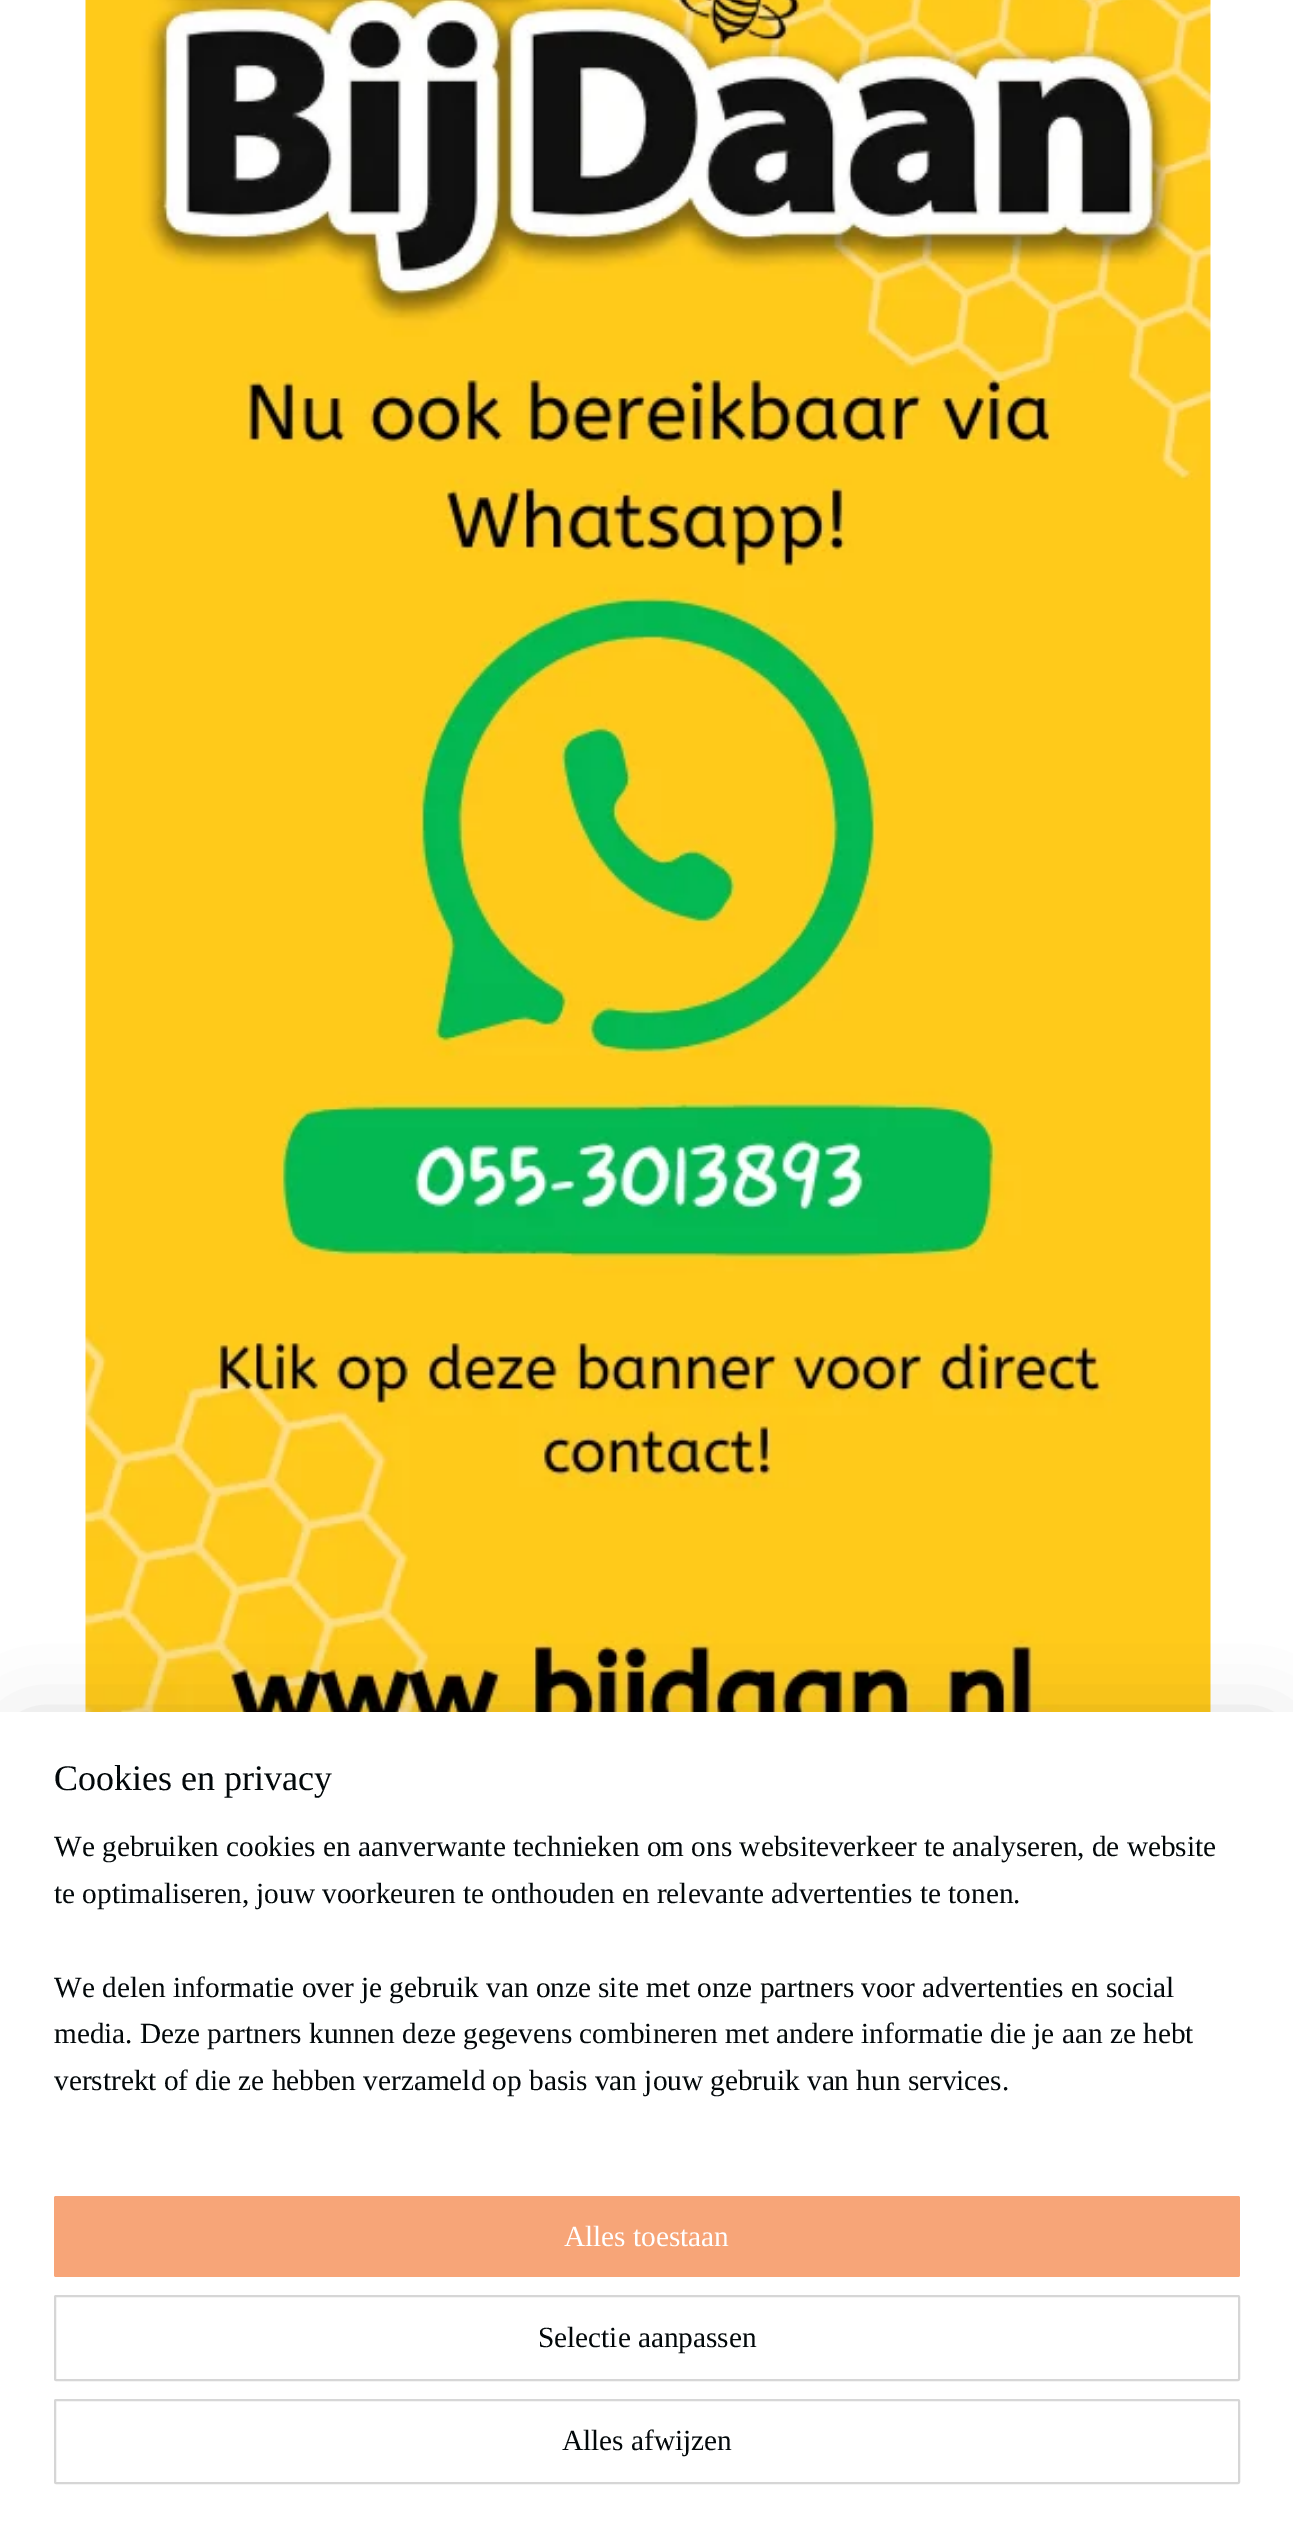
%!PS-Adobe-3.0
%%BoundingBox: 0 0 1293 2537
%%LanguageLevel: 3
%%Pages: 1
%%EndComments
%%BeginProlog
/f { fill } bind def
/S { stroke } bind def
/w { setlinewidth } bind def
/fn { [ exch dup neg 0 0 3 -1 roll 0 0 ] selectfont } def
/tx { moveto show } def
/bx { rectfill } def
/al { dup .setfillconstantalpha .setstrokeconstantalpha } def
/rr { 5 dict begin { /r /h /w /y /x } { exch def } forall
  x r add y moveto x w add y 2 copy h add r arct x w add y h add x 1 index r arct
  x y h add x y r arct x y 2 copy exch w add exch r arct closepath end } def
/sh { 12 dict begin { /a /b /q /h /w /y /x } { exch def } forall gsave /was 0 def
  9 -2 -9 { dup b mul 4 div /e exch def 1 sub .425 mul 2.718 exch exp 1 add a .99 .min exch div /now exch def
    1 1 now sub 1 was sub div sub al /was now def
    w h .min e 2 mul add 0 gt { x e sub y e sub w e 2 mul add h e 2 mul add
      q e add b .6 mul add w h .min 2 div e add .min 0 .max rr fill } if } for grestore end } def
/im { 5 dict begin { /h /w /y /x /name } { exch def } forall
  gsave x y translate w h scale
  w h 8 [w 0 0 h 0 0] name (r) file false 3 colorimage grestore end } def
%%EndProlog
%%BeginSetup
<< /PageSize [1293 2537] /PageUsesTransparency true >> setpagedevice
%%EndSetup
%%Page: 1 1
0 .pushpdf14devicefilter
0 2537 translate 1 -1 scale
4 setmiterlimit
1 setgray
0 0 1293 2537 bx
(image0.raw) 85 0 1126 1712 im
0 setgray
23 1735 1248 781 0 40.5 0.2 sh
1 setgray
0 1712 1293 825 bx
/LiberationSerif-Regular 36 fn
0.008 0.031 0.039 setrgbcolor
(Cookies en privacy) 54 1790 tx
/LiberationSerif-Regular 29.25 fn
(We gebruiken cookies en aanverwante technieken om ons websiteverkeer te analyseren, de website) 54 1856 tx
(te optimaliseren, jouw voorkeuren te onthouden en relevante advertenties te tonen.) 54 1903 tx
(We delen informatie over je gebruik van onze site met onze partners voor advertenties en social) 54 1997 tx
(media. Deze partners kunnen deze gegevens combineren met andere informatie die je aan ze hebt) 54 2043 tx
(verstrekt of die ze hebben verzameld op basis van jouw gebruik van hun services.) 54 2090 tx
0.969 0.647 0.471 setrgbcolor
54 2196 1186 81 2 rr f
1 setgray
(Alles toestaan) 564 2246 tx
0.839 setgray
2 w
55 2296 1184 84 1 rr S
0.008 0.031 0.039 setrgbcolor
(Selectie aanpassen) 538 2347 tx
0.839 setgray
55 2400 1184 83 1 rr S
0.008 0.031 0.039 setrgbcolor
(Alles afwijzen) 562 2450 tx
.poppdf14devicefilter showpage
%%EOF
